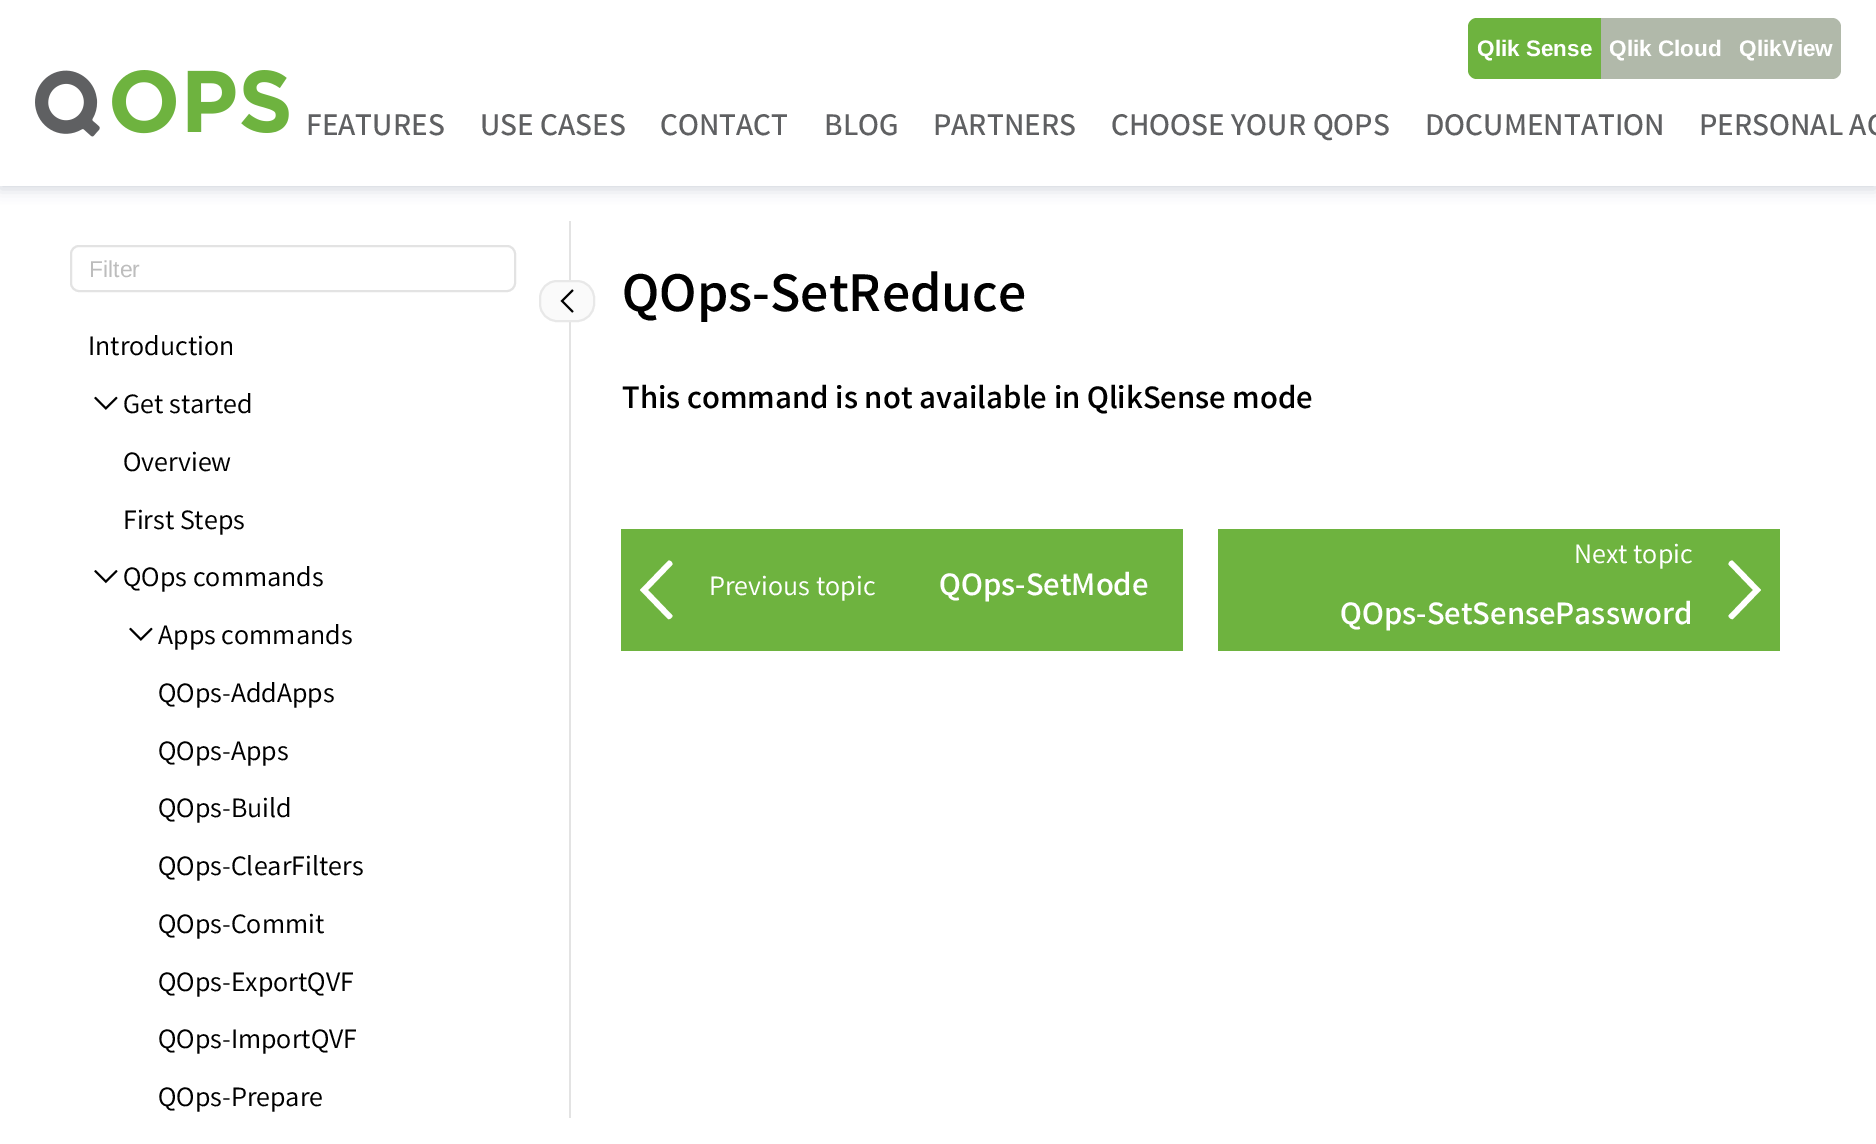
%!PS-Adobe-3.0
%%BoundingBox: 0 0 1876 1144
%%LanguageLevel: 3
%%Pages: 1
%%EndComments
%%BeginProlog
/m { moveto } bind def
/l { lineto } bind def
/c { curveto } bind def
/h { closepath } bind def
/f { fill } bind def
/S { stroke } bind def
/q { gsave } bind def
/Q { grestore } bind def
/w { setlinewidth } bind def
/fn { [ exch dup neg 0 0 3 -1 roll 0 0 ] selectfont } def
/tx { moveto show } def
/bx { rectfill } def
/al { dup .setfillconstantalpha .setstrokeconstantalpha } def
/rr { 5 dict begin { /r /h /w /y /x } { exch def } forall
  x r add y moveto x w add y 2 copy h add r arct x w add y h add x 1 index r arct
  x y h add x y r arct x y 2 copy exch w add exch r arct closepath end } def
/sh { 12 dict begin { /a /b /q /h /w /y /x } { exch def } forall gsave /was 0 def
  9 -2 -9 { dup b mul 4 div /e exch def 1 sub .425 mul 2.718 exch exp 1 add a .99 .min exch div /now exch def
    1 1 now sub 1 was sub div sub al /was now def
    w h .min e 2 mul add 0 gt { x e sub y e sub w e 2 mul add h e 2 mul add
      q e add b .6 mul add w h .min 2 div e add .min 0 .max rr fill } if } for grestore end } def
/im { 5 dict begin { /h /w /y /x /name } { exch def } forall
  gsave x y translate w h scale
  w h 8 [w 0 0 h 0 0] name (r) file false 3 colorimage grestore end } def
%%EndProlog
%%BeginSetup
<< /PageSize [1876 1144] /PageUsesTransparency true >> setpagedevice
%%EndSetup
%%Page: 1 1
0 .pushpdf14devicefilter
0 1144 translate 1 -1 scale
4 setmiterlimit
1 setgray
0 0 1876 1144 bx
0.133 0.235 0.314 setrgbcolor
0 4 1876 185 0 7 0.2 sh
1 setgray
0 0 1876 186 bx
0.431 0.702 0.247 setrgbcolor
1477 18 m 1601 18 l 1601 79 l 1477 79 l 1472 79 1468 75 1468 70 c 1468 27 l 1468 22 1472 18 1477 18 c h f
/LiberationSans-Bold 22.5 fn
1 setgray
(Qlik Sense) 1477 56 tx
0.694 0.725 0.667 setrgbcolor
1601 18 130 61 bx
1 setgray
(Qlik Cloud) 1609 56 tx
0.694 0.725 0.667 setrgbcolor
1731 18 m 1832 18 l 1837 18 1841 22 1841 27 c 1841 70 l 1841 75 1837 79 1832 79 c 1731 79 l h f
1 setgray
(QlikView) 1739 56 tx
(image0.raw) 35 70 254 67 im
/Varta-SemiBold 31.5 fn
0.373 0.376 0.384 setrgbcolor
(FEATURES) 306 135 tx
(USE CASES) 480 135 tx
(CONTACT) 660 135 tx
(BLOG) 824 135 tx
(PARTNERS) 933 135 tx
(CHOOSE YOUR QOPS) 1111 135 tx
(DOCUMENTATION) 1425 135 tx
(PERSONAL AC) 1699 135 tx
0.89 setgray
569 221 2 897 bx
2 w
71 246 444 45 8 rr S
/LiberationSans-Regular 23 fn
0.741 setgray
(Filter) 89 277 tx
/Varta-Regular 28 fn
0 setgray
(Introduction) 88 355 tx
(image1.raw) 94 396 24 14 im
(Get started) 123 413 tx
(Overview) 123 471 tx
(First Steps) 123 529 tx
(image2.raw) 94 570 24 14 im
(QOps commands) 123 586 tx
(image1.raw) 129 627 24 14 im
(Apps commands) 158 644 tx
(QOps-AddApps) 158 702 tx
(QOps-Apps) 158 760 tx
(QOps-Build) 158 817 tx
(QOps-ClearFilters) 158 875 tx
(QOps-Commit) 158 933 tx
(QOps-ExportQVF) 158 991 tx
(QOps-ImportQVF) 158 1048 tx
(QOps-Prepare) 158 1106 tx
0.98 setgray
540 281 54 40 17 rr q f Q
0.91 setgray
S
(image3.raw) 560 289 14 24 im
/Varta-Bold 56 fn
0 setgray
(QOps-SetReduce) 622 311 tx
/Varta-Bold 32.75 fn
(This command is not available in QlikSense mode) 622 408 tx
0.431 0.702 0.247 setrgbcolor
621 529 562 122 bx
1 setgray
672 615 m 674 616 670 620 668 619 c 640 590 l 668 561 l 670 559 674 564 672 565 c 648 590 l h f
/Varta-Regular 28 fn
(Previous topic) 709 595 tx
/Varta-Bold 32.75 fn
(QOps-SetMode) 939 595 tx
0.431 0.702 0.247 setrgbcolor
1218 529 562 122 bx
/Varta-Regular 28 fn
1 setgray
(Next topic) 1574 563 tx
/Varta-Bold 32.75 fn
(QOps-SetSensePassword) 1340 624 tx
1729 615 m 1727 616 1731 620 1733 619 c 1761 590 l 1733 561 l 1731 559 1727 564 1729 565 c 1753 590 l h f
.poppdf14devicefilter showpage
%%EOF
